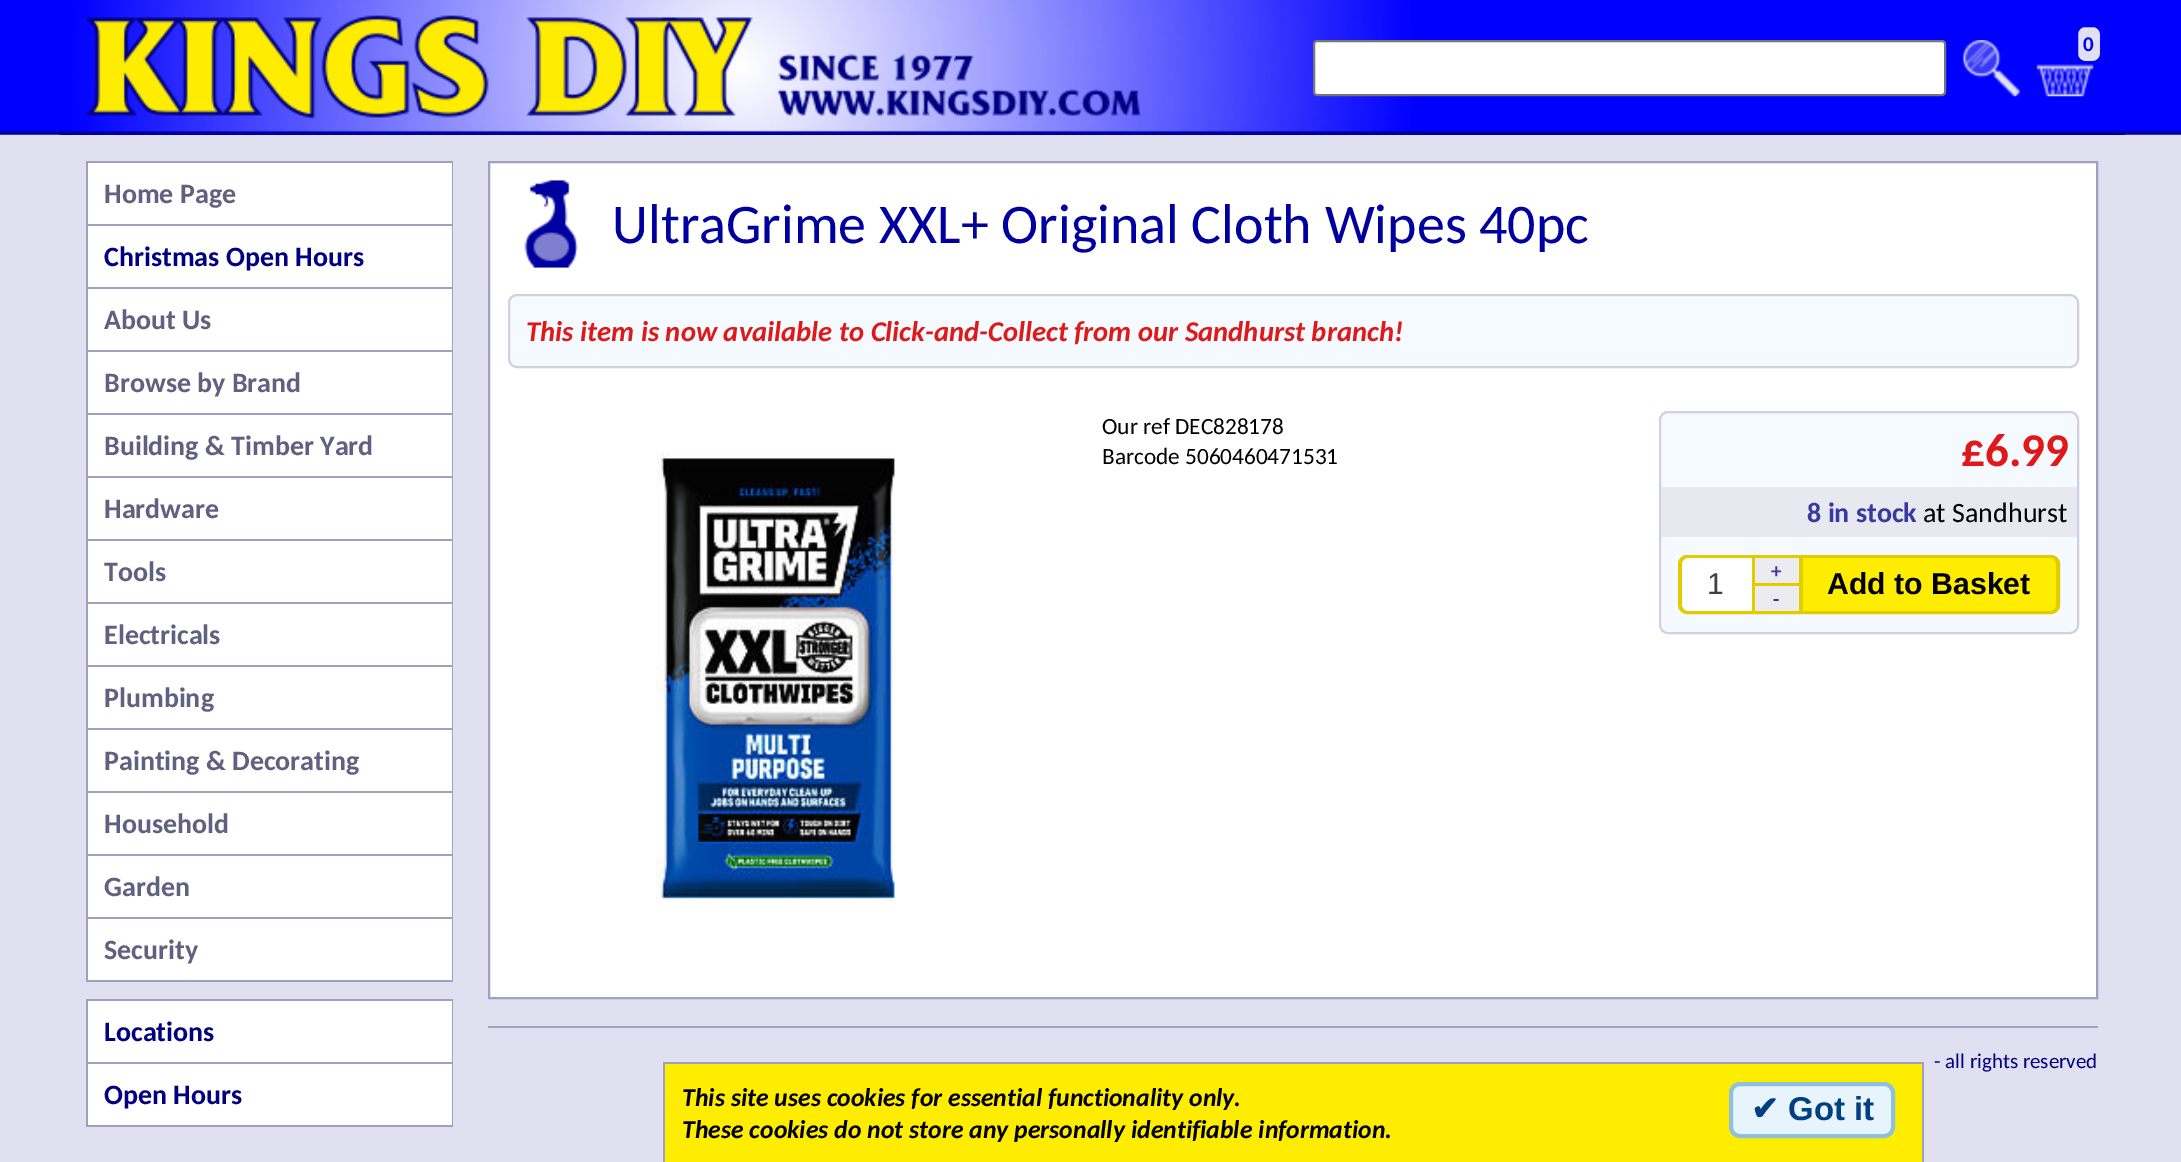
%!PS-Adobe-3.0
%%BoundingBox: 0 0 2181 1162
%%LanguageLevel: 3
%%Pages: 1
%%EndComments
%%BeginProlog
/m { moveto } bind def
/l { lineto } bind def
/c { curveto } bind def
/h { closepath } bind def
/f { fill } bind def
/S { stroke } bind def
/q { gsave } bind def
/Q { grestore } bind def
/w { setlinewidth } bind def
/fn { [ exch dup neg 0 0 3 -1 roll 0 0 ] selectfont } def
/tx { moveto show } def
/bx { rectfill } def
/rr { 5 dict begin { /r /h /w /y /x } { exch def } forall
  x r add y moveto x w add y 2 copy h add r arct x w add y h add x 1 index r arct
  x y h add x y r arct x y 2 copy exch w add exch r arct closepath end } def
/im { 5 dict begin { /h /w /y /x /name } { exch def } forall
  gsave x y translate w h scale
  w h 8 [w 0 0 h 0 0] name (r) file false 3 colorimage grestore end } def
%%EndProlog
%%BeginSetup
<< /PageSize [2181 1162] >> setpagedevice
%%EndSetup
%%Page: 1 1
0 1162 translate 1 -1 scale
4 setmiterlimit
0.878 0.878 0.941 setrgbcolor
0 0 2181 1162 bx
(image0.raw) 0 0 2181 135 im
(image1.raw) 59 0 2066 135 im
(image2.raw) 85 15 1057 105 im
1 setgray
1314 41 631 54 3 rr q f Q
0.463 setgray
2 w
S
(image3.raw) 1962 40 58 57 im
0.878 0.878 0.941 setrgbcolor
2077 26 24 36 8 rr q f Q
0 0 1 setrgbcolor
S
/Carlito-Bold 21 fn
(0) 2083 51 tx
(image4.raw) 2036 64 58 33 im
0.627 0.627 0.753 setrgbcolor
86 161 367 821 bx
1 setgray
88 163 364 61 bx
/Carlito-Bold 28 fn
0.376 0.376 0.502 setrgbcolor
(Home Page) 104 203 tx
1 setgray
88 226 364 61 bx
0 0 0.502 setrgbcolor
(Christmas Open Hours) 104 266 tx
1 setgray
88 289 364 61 bx
0.376 0.376 0.502 setrgbcolor
(About Us) 104 329 tx
1 setgray
88 352 364 61 bx
0.376 0.376 0.502 setrgbcolor
(Browse by Brand) 104 392 tx
1 setgray
88 415 364 61 bx
0.376 0.376 0.502 setrgbcolor
(Building & Timber Yard) 104 455 tx
1 setgray
88 478 364 61 bx
0.376 0.376 0.502 setrgbcolor
(Hardware) 104 518 tx
1 setgray
88 541 364 61 bx
0.376 0.376 0.502 setrgbcolor
(Tools) 104 581 tx
1 setgray
88 604 364 61 bx
0.376 0.376 0.502 setrgbcolor
(Electricals) 104 644 tx
1 setgray
88 667 364 61 bx
0.376 0.376 0.502 setrgbcolor
(Plumbing) 104 707 tx
1 setgray
88 730 364 61 bx
0.376 0.376 0.502 setrgbcolor
(Painting & Decorating) 104 770 tx
1 setgray
88 793 364 61 bx
0.376 0.376 0.502 setrgbcolor
(Household) 104 833 tx
1 setgray
88 856 364 61 bx
0.376 0.376 0.502 setrgbcolor
(Garden) 104 896 tx
1 setgray
88 919 364 61 bx
0.376 0.376 0.502 setrgbcolor
(Security) 104 959 tx
0.627 0.627 0.753 setrgbcolor
86 999 367 128 bx
1 setgray
88 1001 364 61 bx
0 0 0.502 setrgbcolor
(Locations) 104 1041 tx
1 setgray
88 1064 364 61 bx
0 0 0.502 setrgbcolor
(Open Hours) 104 1104 tx
1 setgray
489 162 m 2097 162 l 2097 998 l 489 998 l h q f Q
0.627 0.627 0.753 setrgbcolor
S
(image5.raw) 524 180 54 88 im
/Carlito-Regular 56 fn
0 0 0.627 setrgbcolor
(UltraGrime XXL+ Original Cloth Wipes 40pc) 612 243 tx
0.957 0.98 1 setrgbcolor
509 295 1569 72 8 rr q f Q
0.816 0.816 0.878 setrgbcolor
S
/Carlito-BoldItalic 28.65 fn
0.878 0.094 0.094 setrgbcolor
(This item is now available to Click-and-Collect from our Sandhurst branch!) 526 341 tx
(image6.raw) 656 453 239 449 im
/Carlito-Regular 23.25 fn
0 setgray
(Our ref DEC828178) 1102 434 tx
(Barcode 5060460471531) 1102 464 tx
0.957 0.98 1 setrgbcolor
1660 412 418 221 8 rr q f Q
0.816 0.816 0.878 setrgbcolor
S
/Carlito-Bold 47 fn
0.878 0.094 0.094 setrgbcolor
(£6.99) 1961 466 tx
0.91 0.91 0.941 setrgbcolor
1661 487 416 50 bx
/Carlito-Bold 28 fn
0.22 0.22 0.627 setrgbcolor
(8 in stock) 1807 522 tx
/Carlito-Regular 28 fn
0 setgray
(at Sandhurst) 1923 522 tx
0.875 0.804 0 setrgbcolor
1680 557 378 55 7 rr q f Q
4 w
S
1 setgray
1689 558 m 1752 558 l 1752 611 l 1689 611 l 1685 611 1682 608 1682 604 c 1682 565 l 1682 561 1685 558 1689 558 c h f
/LiberationSans-Regular 30.25 fn
0.251 setgray
(1) 1707 594 tx
0.925 0.925 0.941 setrgbcolor
1755 558 44 25 bx
/Carlito-Bold 21 fn
0.22 0.22 0.627 setrgbcolor
(+) 1771 578 tx
1 0.929 0 setrgbcolor
1803 558 m 2049 558 l 2053 558 2056 561 2056 565 c 2056 604 l 2056 608 2053 611 2049 611 c 1803 611 l h f
/LiberationSans-Bold 30.25 fn
0 setgray
(Add to Basket) 1827 594 tx
0.925 0.925 0.941 setrgbcolor
1755 586 44 25 bx
/Carlito-Bold 21 fn
0.22 0.22 0.627 setrgbcolor
(-) 1773 606 tx
0.627 0.627 0.753 setrgbcolor
488 1026 1610 2 bx
/Carlito-Regular 21 fn
0 0 0.502 setrgbcolor
(- all rights reserved) 1934 1068 tx
1 0.929 0 setrgbcolor
665 1064 1257 98 bx
0.627 0.627 0.753 setrgbcolor
663 1062 1260 2 bx
1922 1062 2 100 bx
663 1062 2 100 bx
/Carlito-BoldItalic 25.7 fn
0 setgray
(This site uses cookies for essential functionality only.) 682 1106 tx
(These cookies do not store any personally identifiable information.) 682 1138 tx
0.91 0.957 0.988 setrgbcolor
1731 1084 162 52 9 rr q f Q
0.565 0.753 0.878 setrgbcolor
S
/DejaVuSans-Bold 33 fn
0 0.251 0.502 setrgbcolor
(✔) 1751 1120 tx
/LiberationSans-Bold 33 fn
(Got it) 1788 1120 tx
showpage
%%EOF
